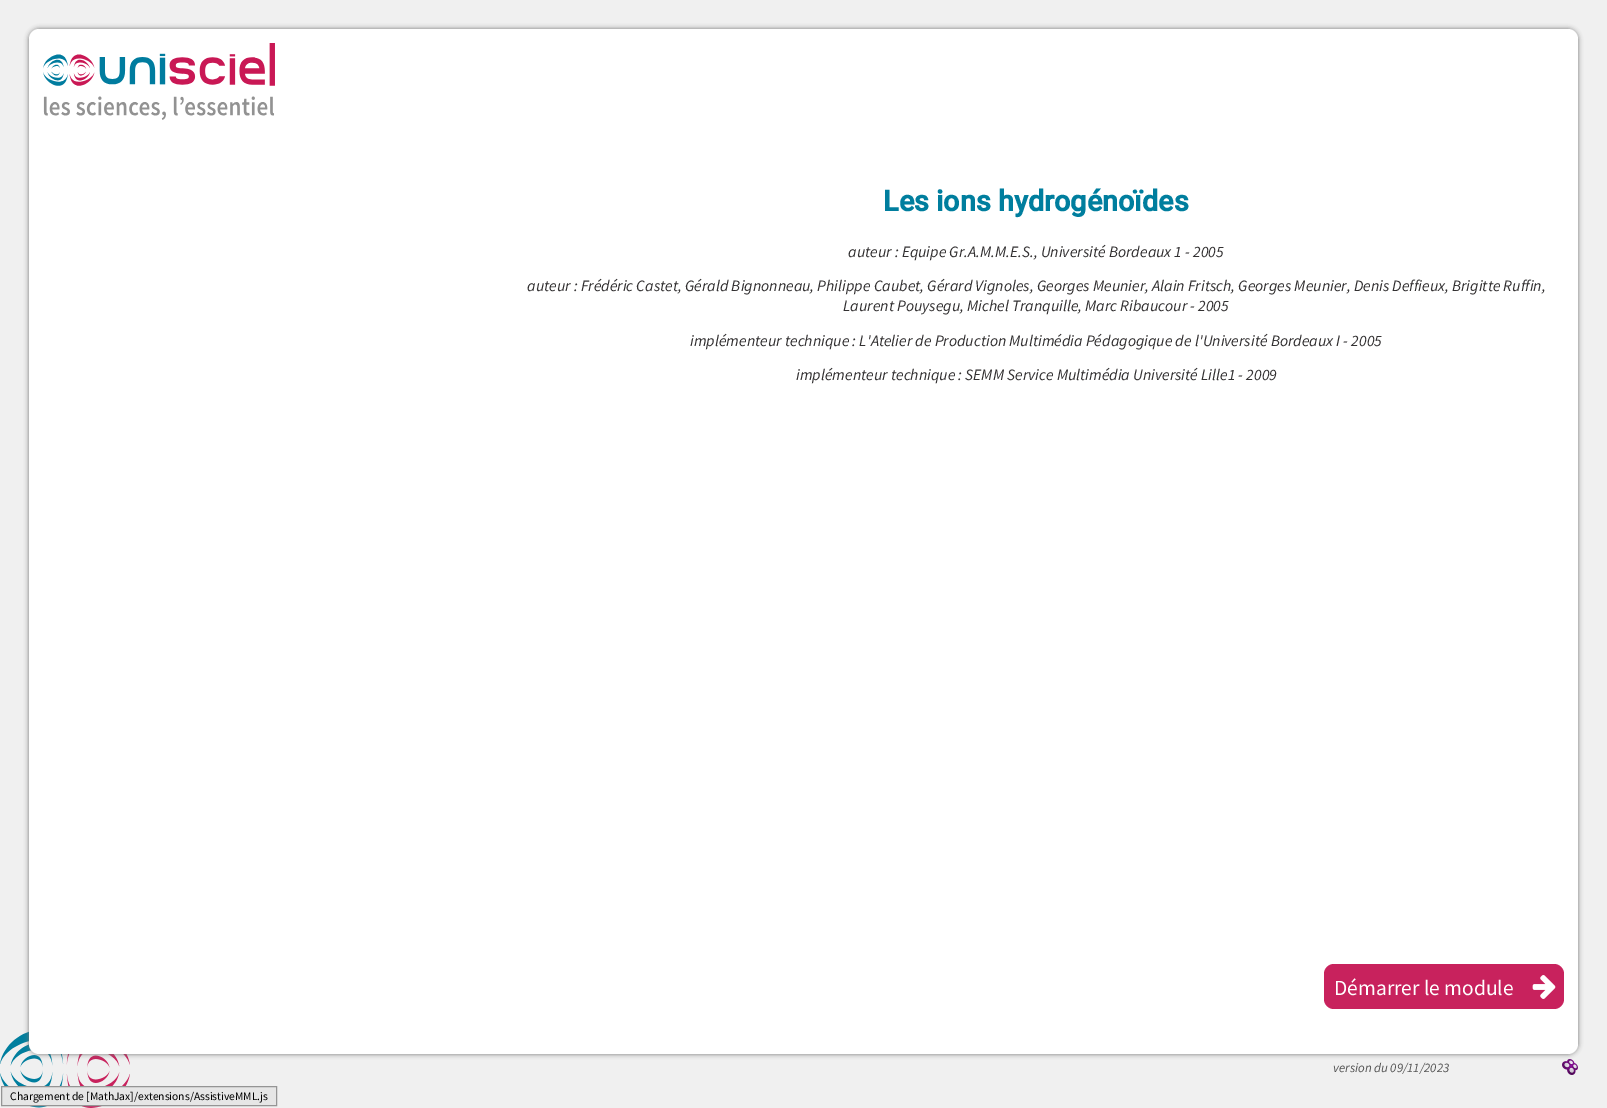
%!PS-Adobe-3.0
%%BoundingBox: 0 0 1607 1108
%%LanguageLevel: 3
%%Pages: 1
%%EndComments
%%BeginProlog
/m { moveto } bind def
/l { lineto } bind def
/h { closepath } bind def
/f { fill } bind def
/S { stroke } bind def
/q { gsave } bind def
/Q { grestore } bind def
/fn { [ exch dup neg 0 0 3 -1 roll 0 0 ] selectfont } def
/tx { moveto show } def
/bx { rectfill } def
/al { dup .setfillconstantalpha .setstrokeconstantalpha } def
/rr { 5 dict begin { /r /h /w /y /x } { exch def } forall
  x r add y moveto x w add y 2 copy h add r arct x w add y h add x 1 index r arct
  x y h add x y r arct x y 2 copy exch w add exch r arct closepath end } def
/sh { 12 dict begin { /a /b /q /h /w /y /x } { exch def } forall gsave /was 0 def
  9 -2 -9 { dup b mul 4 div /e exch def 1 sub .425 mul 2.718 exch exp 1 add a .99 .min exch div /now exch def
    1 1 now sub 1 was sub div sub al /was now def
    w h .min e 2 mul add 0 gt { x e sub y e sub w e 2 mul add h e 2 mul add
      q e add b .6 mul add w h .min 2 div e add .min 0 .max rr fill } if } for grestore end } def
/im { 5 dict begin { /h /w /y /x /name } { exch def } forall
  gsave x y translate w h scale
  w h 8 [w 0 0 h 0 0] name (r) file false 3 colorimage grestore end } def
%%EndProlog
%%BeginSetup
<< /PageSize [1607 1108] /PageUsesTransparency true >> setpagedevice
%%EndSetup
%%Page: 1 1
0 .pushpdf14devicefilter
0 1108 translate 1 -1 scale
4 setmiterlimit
0.941 setgray
0 0 1607 1108 bx
(image0.raw) 0 1031 130 77 im
(image3.raw) 1562 1059 16 16 im
0.463 setgray
29 29 1549 1025 10 2.5 1 sh
1 setgray
29 29 1549 1025 10 rr f
(image1.raw) 43 43 232 77 im
/Roboto-Bold 28.75 fn
0 0.494 0.62 setrgbcolor
(Les ions hydrogénoïdes) 883 211 tx
/SourceSansPro-Italic 15.85 fn
0.2 0.192 0.196 setrgbcolor
(auteur : Equipe Gr.A.M.M.E.S., Université Bordeaux 1 - 2005) 848 257 tx
(auteur : Frédéric Castet, Gérald Bignonneau, Philippe Caubet, Gérard Vignoles, Georges Meunier, Alain Fritsch, Georges Meunier, Denis Deffieux, Brigitte Ruffin,) 527 291 tx
(Laurent Pouysegu, Michel Tranquille, Marc Ribaucour - 2005) 843 311 tx
(implémenteur technique : L'Atelier de Production Multimédia Pédagogique de l'Université Bordeaux I - 2005) 690 346 tx
(implémenteur technique : SEMM Service Multimédia Université Lille1 - 2009) 796 380 tx
0.784 0.133 0.365 setrgbcolor
1324 964 240 45 10 rr f
(image2.raw) 1532 975 24 24 im
/SourceSansPro-Regular 21.5 fn
1 setgray
(Démarrer le module) 1334 995 tx
/SourceSansPro-Italic 13 fn
0.333 setgray
(version du 09/11/2023) 1333 1072 tx
0.902 setgray
1.5 1086.5 m 276.5 1086.5 l 276.5 1105.5 l 1.5 1105.5 l h q f Q
0.584 setgray
S
/SourceSansPro-Regular 11.5 fn
0 setgray
(Chargement de [MathJax]/extensions/AssistiveMML.js) 10 1100 tx
.poppdf14devicefilter showpage
%%EOF
